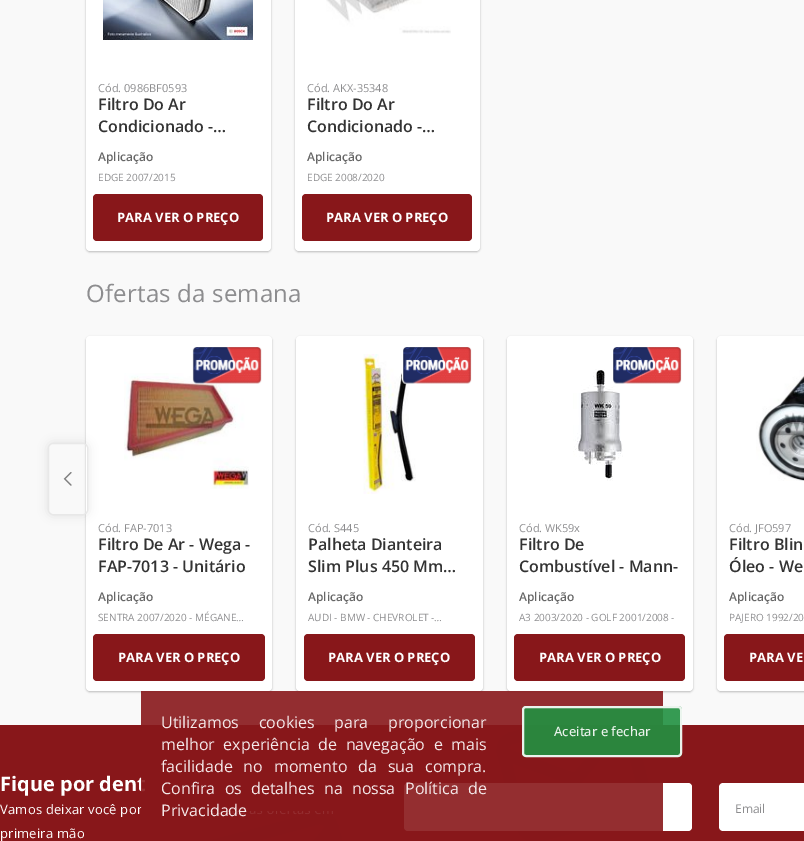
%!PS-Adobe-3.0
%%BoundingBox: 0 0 804 841
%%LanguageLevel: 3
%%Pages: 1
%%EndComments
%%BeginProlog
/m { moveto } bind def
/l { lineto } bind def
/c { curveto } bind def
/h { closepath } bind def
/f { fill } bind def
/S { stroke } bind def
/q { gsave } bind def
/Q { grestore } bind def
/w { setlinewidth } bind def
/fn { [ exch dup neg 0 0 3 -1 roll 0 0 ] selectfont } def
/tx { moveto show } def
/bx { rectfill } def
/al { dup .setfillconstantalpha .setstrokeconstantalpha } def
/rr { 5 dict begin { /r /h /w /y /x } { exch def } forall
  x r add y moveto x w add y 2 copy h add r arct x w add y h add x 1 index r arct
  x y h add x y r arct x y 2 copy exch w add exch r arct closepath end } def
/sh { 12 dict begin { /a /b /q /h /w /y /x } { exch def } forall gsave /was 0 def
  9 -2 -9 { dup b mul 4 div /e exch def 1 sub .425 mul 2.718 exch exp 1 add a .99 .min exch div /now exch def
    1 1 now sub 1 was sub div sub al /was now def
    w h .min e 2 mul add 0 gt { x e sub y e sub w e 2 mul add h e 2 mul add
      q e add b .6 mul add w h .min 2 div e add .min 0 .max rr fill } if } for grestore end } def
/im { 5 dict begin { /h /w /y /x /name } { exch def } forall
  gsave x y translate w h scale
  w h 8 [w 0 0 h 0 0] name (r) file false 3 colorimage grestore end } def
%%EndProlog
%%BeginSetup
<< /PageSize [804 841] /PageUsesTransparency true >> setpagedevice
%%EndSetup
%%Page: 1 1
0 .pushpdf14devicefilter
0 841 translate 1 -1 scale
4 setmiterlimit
0.976 setgray
0 0 804 841 bx
0 setgray
86 -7 185 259 4 1 0.25 sh
1 setgray
86 -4 185 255 4 rr f
(image0.raw) 103 0 150 40 im
/OpenSans-Regular 11 fn
0.553 0.553 0.561 setrgbcolor
(Cód. 0986BF0593) 98 92 tx
/OpenSans-SemiBold 16 fn
0.2 setgray
(Filtro Do Ar) 98 110 tx
(Condicionado -…) 98 132 tx
/OpenSans-SemiBold 12 fn
0.4 setgray
(Aplicação) 98 161 tx
/OpenSans-Regular 10 fn
0.553 0.553 0.561 setrgbcolor
(EDGE 2007/2015) 98 181 tx
0.533 0.09 0.102 setrgbcolor
93 194 170 47 4 rr f
/OpenSans-Bold 13 fn
1 setgray
(PARA VER O PREÇO) 117 222 tx
0 setgray
295 -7 185 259 4 1 0.25 sh
1 setgray
295 -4 185 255 4 rr f
(image1.raw) 326 0 125 34 im
/OpenSans-Regular 11 fn
0.553 0.553 0.561 setrgbcolor
(Cód. AKX-35348) 307 92 tx
/OpenSans-SemiBold 16 fn
0.2 setgray
(Filtro Do Ar) 307 110 tx
(Condicionado -…) 307 132 tx
/OpenSans-SemiBold 12 fn
0.4 setgray
(Aplicação) 307 161 tx
/OpenSans-Regular 10 fn
0.553 0.553 0.561 setrgbcolor
(EDGE 2008/2020) 307 181 tx
0.533 0.09 0.102 setrgbcolor
302 194 170 47 4 rr f
/OpenSans-Bold 13 fn
1 setgray
(PARA VER O PREÇO) 326 222 tx
/OpenSans-Regular 24 fn
0.553 0.553 0.561 setrgbcolor
86 302 m 0.2 0 (Ofertas da semana) ashow
0 setgray
86 337 186 355 4 1 0.25 sh
1 setgray
86 336 186 355 4 rr f
q
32 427 m 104 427 l 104 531 l 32 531 l h 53 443 m 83 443 l 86 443 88 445 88 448 c 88 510 l 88 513 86 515 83 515 c 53 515 l 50 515 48 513 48 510 c 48 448 l 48 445 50 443 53 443 c h eoclip newpath
0 setgray
48 443 40 72 5 5 0.11 sh
Q
0.91 setgray
48.5 443.5 39 71 4.5 rr S
(image2.raw) 63 472 9 14 im
(image4.raw) 124 373 125 116 im
(image3.raw) 192 347 70 37 im
/OpenSans-Regular 11 fn
0.553 0.553 0.561 setrgbcolor
(Cód. FAP-7013) 98 532 tx
/OpenSans-SemiBold 16 fn
0.2 setgray
(Filtro De Ar - Wega -) 98 550 tx
(FAP-7013 - Unitário) 98 572 tx
/OpenSans-SemiBold 12 fn
0.4 setgray
(Aplicação) 98 601 tx
/OpenSans-Regular 10 fn
0.553 0.553 0.561 setrgbcolor
(SENTRA 2007/2020 - MÉGANE…) 98 621 tx
0.533 0.09 0.102 setrgbcolor
93 634 172 47 4 rr f
/OpenSans-Bold 13 fn
1 setgray
(PARA VER O PREÇO) 118 662 tx
0 setgray
296 337 187 355 4 1 0.25 sh
1 setgray
296 336 187 355 4 rr f
(image5.raw) 363 354 53 140 im
(image6.raw) 402 347 70 37 im
/OpenSans-Regular 11 fn
0.553 0.553 0.561 setrgbcolor
(Cód. S445) 308 532 tx
/OpenSans-SemiBold 16 fn
0.2 setgray
(Palheta Dianteira) 308 550 tx
(Slim Plus 450 Mm…) 308 572 tx
/OpenSans-SemiBold 12 fn
0.4 setgray
(Aplicação) 308 601 tx
/OpenSans-Regular 10 fn
0.553 0.553 0.561 setrgbcolor
(AUDI - BMW - CHEVROLET -…) 308 621 tx
0.533 0.09 0.102 setrgbcolor
304 634 171 47 4 rr f
/OpenSans-Bold 13 fn
1 setgray
(PARA VER O PREÇO) 328 662 tx
0 setgray
507 337 186 355 4 1 0.25 sh
1 setgray
507 336 186 355 4 rr f
(image7.raw) 573 369 50 112 im
(image8.raw) 613 347 69 37 im
/OpenSans-Regular 11 fn
0.553 0.553 0.561 setrgbcolor
(Cód. WK59x) 519 532 tx
/OpenSans-SemiBold 16 fn
0.2 setgray
(Filtro De) 519 550 tx
(Combustível - Mann-) 519 572 tx
/OpenSans-SemiBold 12 fn
0.4 setgray
(Aplicação) 519 601 tx
/OpenSans-Regular 10 fn
0.553 0.553 0.561 setrgbcolor
(A3 2003/2020 - GOLF 2001/2008 -) 519 621 tx
0.533 0.09 0.102 setrgbcolor
514 634 171 47 4 rr f
/OpenSans-Bold 13 fn
1 setgray
(PARA VER O PREÇO) 539 662 tx
0 setgray
717 337 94 355 4 1 0.25 sh
1 setgray
717 336 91 355 4 rr f
(image9.raw) 756 370 48 111 im
/OpenSans-Regular 11 fn
0.553 0.553 0.561 setrgbcolor
(Cód. JFO597) 729 532 tx
/OpenSans-SemiBold 16 fn
0.2 setgray
(Filtro Blin) 729 550 tx
(Óleo - We) 729 572 tx
/OpenSans-SemiBold 12 fn
0.4 setgray
(Aplicação) 729 601 tx
/OpenSans-Regular 10 fn
0.553 0.553 0.561 setrgbcolor
(PAJERO 1992/20) 729 621 tx
0.533 0.09 0.102 setrgbcolor
724 634 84 47 4 rr f
/OpenSans-Bold 13 fn
1 setgray
(PARA VE) 749 662 tx
0.533 0.09 0.102 setrgbcolor
0 725 804 116 bx
(image10.raw) 496 725 153 116 im
/OpenSans-Bold 20 fn
1 setgray
(Fique por dent) 0 791 tx
/OpenSans-Regular 13 fn
0 814 m 0.2 0 (Vamos deixar você por) ashow
404 783 288 48 4 rr f
(image11.raw) 210 811 133 30 im
0.9 al
0.533 0.09 0.102 setrgbcolor
141 691 522 150 bx
/OpenSans-Regular 16 fn
1 al
0.957 0.914 0.918 setrgbcolor
161 728 m 15.5 0 32 (Utilizamos cookies para proporcionar) widthshow
161 750 m 4.5 0 32 (melhor experiência de navegação e mais) widthshow
161 772 m 6.75 0 32 (facilidade no momento da sua compra.) widthshow
161 794 m 5 0 32 (Confira os detalhes na nossa) widthshow
405 794 m 5 0 32 (Política de) widthshow
(Privacidade) 161 816 tx
0.9 al
0.129 0.569 0.255 setrgbcolor
522 706 160 51 4 rr f
1 setgray
2 w
523 707 158 49 3 rr S
/OpenSans-Medium 13 fn
1 al
0.918 0.953 0.925 setrgbcolor
(Aceitar e fechar) 554 736 tx
/OpenSans-Regular 13 fn
1 setgray
0 838 m 0.2 0 (primeira mão) ashow
723 783 m 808 783 l 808 831 l 723 831 l 721 831 719 829 719 827 c 719 787 l 719 785 721 783 723 783 c h f
/OpenSans-Regular 12 fn
0.553 0.553 0.561 setrgbcolor
(Email) 735 813 tx
.poppdf14devicefilter showpage
%%EOF
